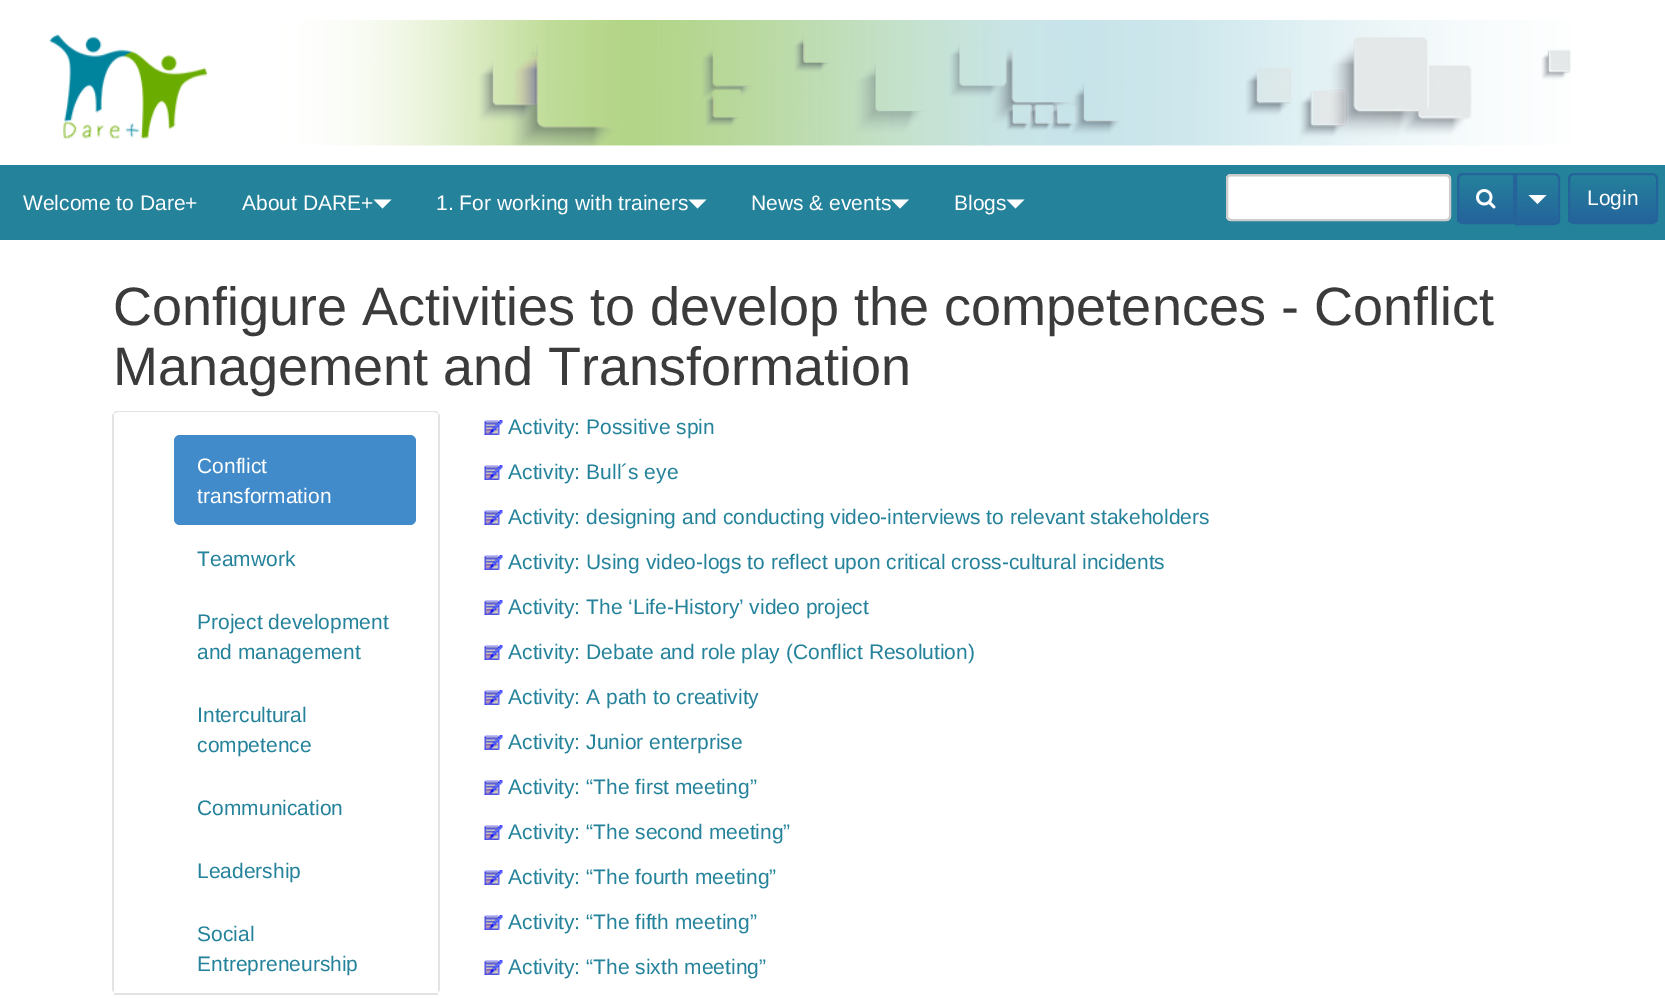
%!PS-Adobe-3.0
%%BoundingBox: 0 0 1665 999
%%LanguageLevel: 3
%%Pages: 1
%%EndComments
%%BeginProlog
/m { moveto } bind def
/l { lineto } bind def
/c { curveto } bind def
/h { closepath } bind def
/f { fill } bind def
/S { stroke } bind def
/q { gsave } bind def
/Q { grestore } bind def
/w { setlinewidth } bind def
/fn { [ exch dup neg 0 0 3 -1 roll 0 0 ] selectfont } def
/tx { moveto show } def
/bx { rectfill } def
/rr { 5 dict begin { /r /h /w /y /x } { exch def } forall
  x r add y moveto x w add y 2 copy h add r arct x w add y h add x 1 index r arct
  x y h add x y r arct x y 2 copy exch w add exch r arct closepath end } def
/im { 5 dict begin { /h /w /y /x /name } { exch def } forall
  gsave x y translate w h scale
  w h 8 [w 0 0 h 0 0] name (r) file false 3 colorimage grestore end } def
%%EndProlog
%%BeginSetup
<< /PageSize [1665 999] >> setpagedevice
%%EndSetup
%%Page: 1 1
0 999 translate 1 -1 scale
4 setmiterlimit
1 setgray
0 0 1665 999 bx
0.141 0.51 0.608 setrgbcolor
0 165 1665 75 bx
(image0.raw) 49 20 1522 126 im
/LiberationSans-Regular 21 fn
1 setgray
(Welcome to Dare+) 23 210 tx
(About DARE+) 242 210 tx
1 0.996 1 setrgbcolor
373.5 199.5 m 391.5 199.5 l 382.5 208.5 l h f
1 setgray
(1. For working with trainers) 436 210 tx
1 0.996 1 setrgbcolor
688.5 199.5 m 706.5 199.5 l 697.5 208.5 l h f
1 setgray
(News & events) 751 210 tx
1 0.996 1 setrgbcolor
891 199.5 m 909 199.5 l 900 208.5 l h f
1 setgray
(Blogs) 954 210 tx
1 0.996 1 setrgbcolor
1006.5 199.5 m 1024.5 199.5 l 1015.5 208.5 l h f
1 setgray
1226 174 225 47 5 rr f
0.925 setgray
1230 177 m 1446 177 l 1448 177 1449 178 1449 180 c 1449 179 l 1449 177 1448 176 1446 176 c 1230 176 l 1228 176 1227 177 1227 179 c 1227 180 l 1227 178 1228 177 1230 177 c h f
0.8 setgray
2 w
1227 175 223 45 4 rr S
q
1463 173 m 1515 173 l 1515 224 l 1463 224 l 1459.5 224 1457 221.5 1457 218 c 1457 179 l 1457 175.5 1459.5 173 1463 173 c h clip newpath
q 1457 174 m 1513 174 l 1513 222 l 1457 222 l h clip newpath
<< /ShadingType 2 /ColorSpace /DeviceRGB /Coords [1486 174 1486 222] /Extend [true true] /Function << /FunctionType 2 /Domain [0 1] /C0 [0.141 0.51 0.608] /C1 [0.141 0.392 0.608] /N 1 >> >> shfill Q
Q
0.141 0.392 0.608 setrgbcolor
1463 174 m 1514 174 l 1514 223 l 1463 223 l 1460 223 1458 221 1458 218 c 1458 179 l 1458 176 1460 174 1463 174 c h S
(image1.raw) 1476 189 20 20 im
q
1515 173 m 1554 173 l 1557.5 173 1560 175.5 1560 179 c 1560 219 l 1560 222.5 1557.5 225 1554 225 c 1515 225 l h clip newpath
q 1517 174 m 1560 174 l 1560 224 l 1517 224 l h clip newpath
<< /ShadingType 2 /ColorSpace /DeviceRGB /Coords [1538 174 1538 224] /Extend [true true] /Function << /FunctionType 2 /Domain [0 1] /C0 [0.141 0.51 0.608] /C1 [0.141 0.392 0.608] /N 1 >> >> shfill Q
Q
1516 174 m 1554 174 l 1557 174 1559 176 1559 179 c 1559 219 l 1559 222 1557 224 1554 224 c 1516 224 l h S
1 0.996 1 setrgbcolor
1528.5 195 m 1546.5 195 l 1537.5 204 l h f
q
1568 173 90 51 6 rr clip newpath
q 1568 174 m 1658 174 l 1658 222 l 1568 222 l h clip newpath
<< /ShadingType 2 /ColorSpace /DeviceRGB /Coords [1613 174 1613 222] /Extend [true true] /Function << /FunctionType 2 /Domain [0 1] /C0 [0.141 0.51 0.608] /C1 [0.141 0.392 0.608] /N 1 >> >> shfill Q
Q
0.141 0.392 0.608 setrgbcolor
1569 174 88 49 5 rr S
1 setgray
(Login) 1587 205 tx
/LiberationSans-Regular 54 fn
0.231 setgray
(Configure Activities to develop the competences - Conflict) 113 325 tx
(Management and Transformation) 113 385 tx
0.89 setgray
118 411 m 434 411 l 437 411 440 414 440 417 c 440 988 l 440 992 437 994 434 994 c 118 994 l 115 994 112 992 112 988 c 112 417 l 112 414 115 411 118 411 c h 118 412 m 434 412 l 436 412 438 415 438 417 c 438 988 l 438 992 436 994 434 994 c 118 994 l 116 994 114 992 114 988 c 114 417 l 114 415 116 412 118 412 c h eofill
1 setgray
114 413 324 580 bx
0.89 setgray
114 993 324 2 bx
0.259 0.545 0.792 setrgbcolor
174 435 242 90 6 rr f
/LiberationSans-Regular 21 fn
1 setgray
(Conflict) 197 473 tx
(transformation) 197 503 tx
0.141 0.51 0.608 setrgbcolor
(Teamwork) 197 566 tx
(Project development) 197 629 tx
(and management) 197 659 tx
(Intercultural) 197 722 tx
(competence) 197 752 tx
(Communication) 197 815 tx
(Leadership) 197 878 tx
(Social) 197 941 tx
(Entrepreneurship) 197 971 tx
(image2.raw) 484 420 19 15 im
(Activity: Possitive spin) 508 434 tx
(image2.raw) 484 465 19 15 im
(Activity: Bull´s eye) 508 479 tx
(image2.raw) 484 510 19 15 im
(Activity: designing and conducting video-interviews to relevant stakeholders) 508 524 tx
(image2.raw) 484 555 19 15 im
(Activity: Using video-logs to reflect upon critical cross-cultural incidents) 508 569 tx
(image2.raw) 484 600 19 15 im
(Activity: The ‘Life-History’ video project) 508 614 tx
(image2.raw) 484 645 19 15 im
(Activity: Debate and role play \(Conflict Resolution\)) 508 659 tx
(image2.raw) 484 690 19 15 im
(Activity: A path to creativity) 508 704 tx
(image2.raw) 484 735 19 15 im
(Activity: Junior enterprise) 508 749 tx
(image2.raw) 484 780 19 15 im
(Activity: “The first meeting”) 508 794 tx
(image2.raw) 484 825 19 15 im
(Activity: “The second meeting”) 508 839 tx
(image2.raw) 484 870 19 15 im
(Activity: “The fourth meeting”) 508 884 tx
(image2.raw) 484 915 19 15 im
(Activity: “The fifth meeting”) 508 929 tx
(image2.raw) 484 960 19 15 im
(Activity: “The sixth meeting”) 508 974 tx
showpage
%%EOF
